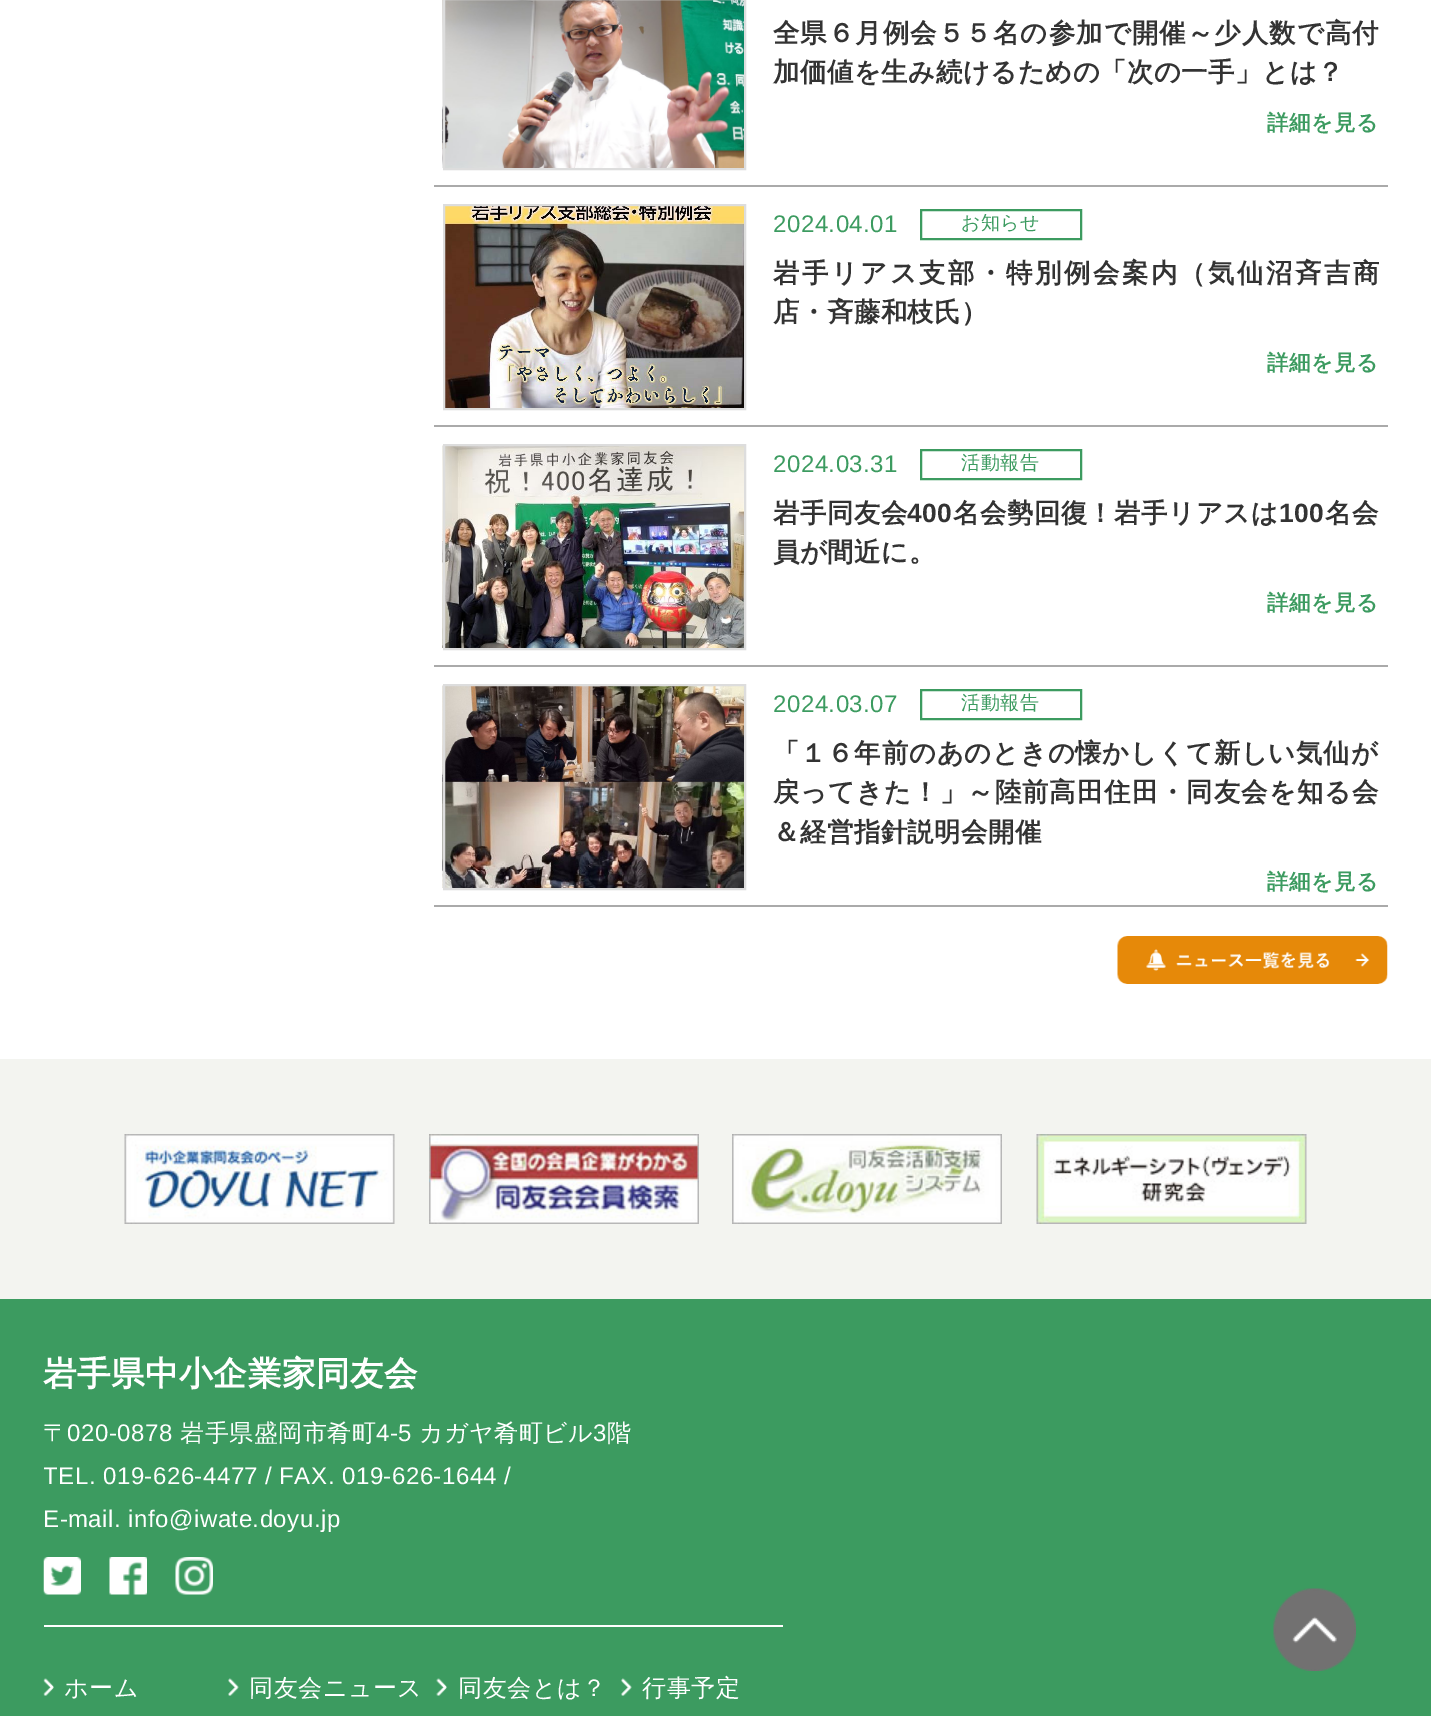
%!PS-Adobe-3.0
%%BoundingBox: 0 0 1431 1716
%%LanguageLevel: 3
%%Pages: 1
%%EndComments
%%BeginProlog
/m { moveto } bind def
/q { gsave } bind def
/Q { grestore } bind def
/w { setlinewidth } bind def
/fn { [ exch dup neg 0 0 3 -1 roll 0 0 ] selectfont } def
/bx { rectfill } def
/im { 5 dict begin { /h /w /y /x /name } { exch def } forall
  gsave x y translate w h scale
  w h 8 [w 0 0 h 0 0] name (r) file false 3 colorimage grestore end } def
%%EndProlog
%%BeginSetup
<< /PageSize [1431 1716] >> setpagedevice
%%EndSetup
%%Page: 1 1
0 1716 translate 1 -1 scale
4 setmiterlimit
1 setgray
0 0 1431 1716 bx
0.667 setgray
434 185 954 2 bx
(image0.raw) 442 0 302 168 im
0.867 setgray
2 w
444 -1 301 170 rectstroke
/WenQuanYiZenHei-Bold 26.4 fn
0.2 setgray
773 42 m 1.1 0 (全県６月例会５５名の参加で開催～少人数で高付) ashow
773 81 m 0.5 0 (加価値を生み続けるための「次の一手」とは？) ashow
/WenQuanYiZenHei-Bold 21.5 fn
0.235 0.608 0.376 setrgbcolor
1267 130 m 0.5 0 (詳細を見る) ashow
0.667 setgray
434 425 954 2 bx
(image1.raw) 445 206 299 202 im
0.867 setgray
444 205 301 204 rectstroke
/LiberationSans-Regular 24 fn
0.235 0.608 0.376 setrgbcolor
773 232 m 0.5 0 (2024.04.01) ashow
921 210 160 29 rectstroke
/WenQuanYiZenHei-Medium 19 fn
961 229 m 0.5 0 (お知らせ) ashow
/WenQuanYiZenHei-Bold 26.4 fn
0.2 setgray
773 282 m 2.5 0 (岩手リアス支部・特別例会案内（気仙沼斉吉商) ashow
773 321 m 0.5 0 (店・斉藤和枝氏）) ashow
/WenQuanYiZenHei-Bold 21.5 fn
0.235 0.608 0.376 setrgbcolor
1267 370 m 0.5 0 (詳細を見る) ashow
0.667 setgray
434 665 954 2 bx
(image2.raw) 442 445 302 203 im
0.867 setgray
444 445 301 204 rectstroke
/LiberationSans-Regular 24 fn
0.235 0.608 0.376 setrgbcolor
773 472 m 0.5 0 (2024.03.31) ashow
921 450 160 29 rectstroke
/WenQuanYiZenHei-Medium 19 fn
961 469 m 0.5 0 (活動報告) ashow
/WenQuanYiZenHei-Bold 26.4 fn
0.2 setgray
773 522 m 0.5 0 (岩手同友会) ashow
/LiberationSans-Bold 26.4 fn
907 522 m 0.5 0 (400) ashow
/WenQuanYiZenHei-Bold 26.4 fn
953 522 m 0.5 0 (名会勢回復！岩手リアスは) ashow
/LiberationSans-Bold 26.4 fn
1279 522 m 0.5 0 (100) ashow
/WenQuanYiZenHei-Bold 26.4 fn
1325 522 m 0.5 0 (名会) ashow
773 561 m 0.5 0 (員が間近に。) ashow
/WenQuanYiZenHei-Bold 21.5 fn
0.235 0.608 0.376 setrgbcolor
1267 610 m 0.5 0 (詳細を見る) ashow
0.667 setgray
434 905 954 2 bx
(image3.raw) 442 685 302 203 im
0.867 setgray
444 685 301 204 rectstroke
/LiberationSans-Regular 24 fn
0.235 0.608 0.376 setrgbcolor
773 712 m 0.5 0 (2024.03.07) ashow
921 690 160 29 rectstroke
/WenQuanYiZenHei-Medium 19 fn
961 709 m 0.5 0 (活動報告) ashow
/WenQuanYiZenHei-Bold 26.4 fn
0.2 setgray
773 762 m 0.75 0 (「１６年前のあのときの懐かしくて新しい気仙が) ashow
773 801 m 1 0 (戻ってきた！」～陸前高田住田・同友会を知る会) ashow
773 841 m 0.5 0 (＆経営指針説明会開催) ashow
/WenQuanYiZenHei-Bold 21.5 fn
0.235 0.608 0.376 setrgbcolor
1267 889 m 0.5 0 (詳細を見る) ashow
(image4.raw) 1117 936 271 48 im
0.953 0.957 0.941 setrgbcolor
0 1059 1431 240 bx
(image5.raw) 124 1134 271 90 im
(image6.raw) 429 1134 270 90 im
(image7.raw) 732 1134 270 90 im
(image8.raw) 1036 1134 271 90 im
0.235 0.608 0.376 setrgbcolor
0 1299 1431 417 bx
1 setgray
44 1625 739 2 bx
/WenQuanYiZenHei-Bold 33.6 fn
43 1385 m 0.5 0 (岩手県中小企業家同友会) ashow
/WenQuanYiZenHei-Medium 24 fn
43 1441 m 0.5 0 (〒) ashow
/LiberationSans-Regular 24 fn
67 1441 m 0.5 0 (020-0878) ashow
/WenQuanYiZenHei-Medium 24 fn
180 1441 m 0.5 0 (岩手県盛岡市肴町) ashow
/LiberationSans-Regular 24 fn
376 1441 m 0.5 0 (4-5) ashow
/WenQuanYiZenHei-Medium 24 fn
419 1441 m 0.5 0 (カガヤ肴町ビル) ashow
/LiberationSans-Regular 24 fn
593 1441 m 0.5 0 (3) ashow
/WenQuanYiZenHei-Medium 24 fn
607 1441 m 0.5 0 (階) ashow
q
44 1299 1344 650 rectclip
/LiberationSans-Regular 24 fn
43 1484 m 0.5 0 (TEL. 019-626-4477) ashow
Q
/LiberationSans-Regular 24 fn
265 1484 m 0.5 0 (/ FAX. 019-626-1644 /) ashow
43 1527 m 0.5 0 (E-mail. info@iwate.doyu.jp) ashow
(image9.raw) 43 1557 38 38 im
(image10.raw) 109 1557 38 38 im
(image11.raw) 175 1557 38 38 im
(image12.raw) 43 1678 11 18 im
/WenQuanYiZenHei-Medium 24 fn
64 1696 m 0.5 0 (ホーム) ashow
(image13.raw) 228 1678 11 18 im
249 1696 m 0.5 0 (同友会ニュース) ashow
(image14.raw) 436 1678 11 18 im
458 1696 m 0.5 0 (同友会とは？) ashow
(image13.raw) 621 1678 11 18 im
642 1696 m 0.5 0 (行事予定) ashow
(image15.raw) 1273 1588 83 83 im
showpage
%%EOF
